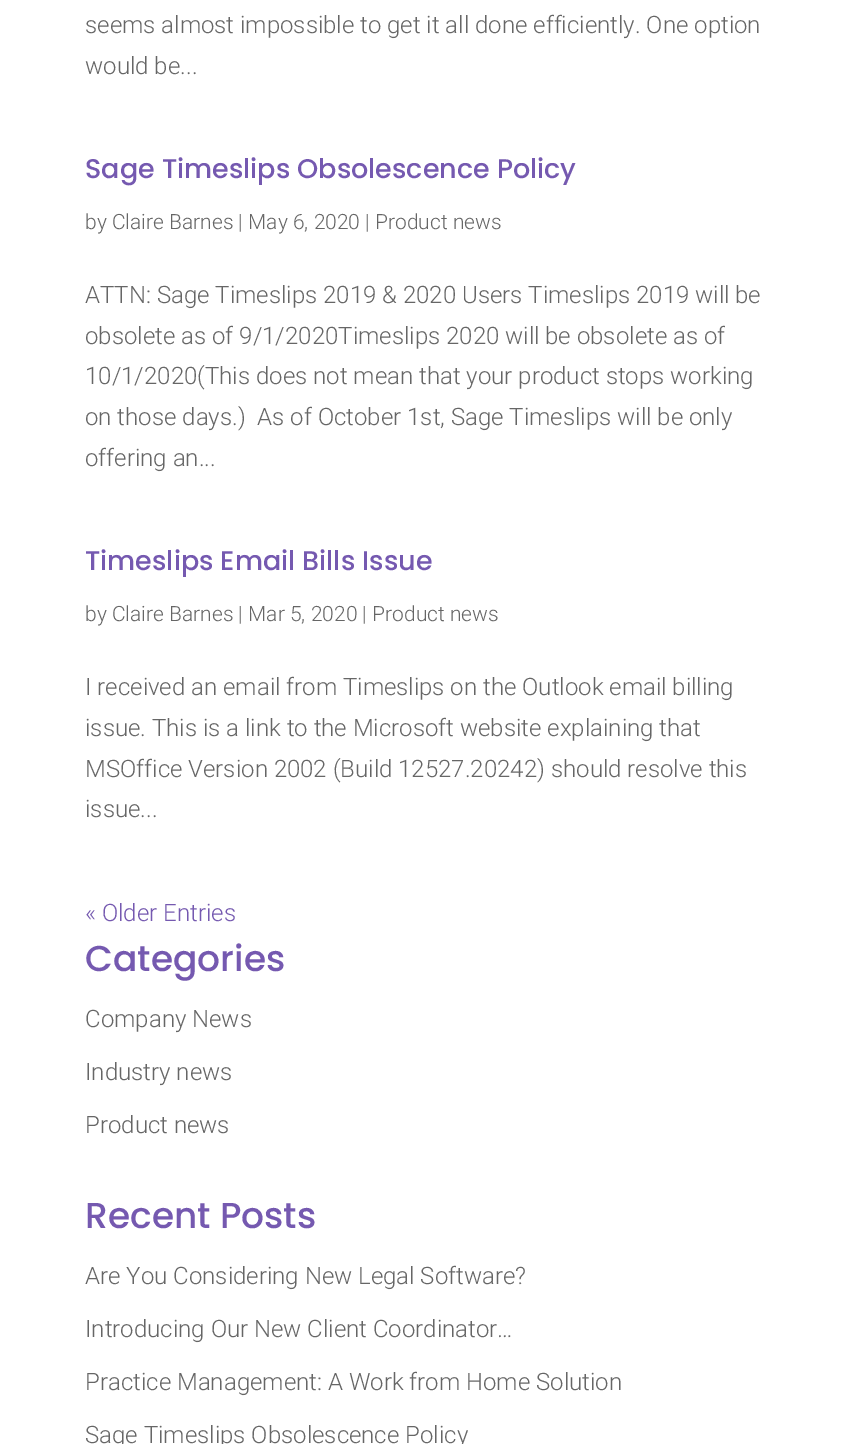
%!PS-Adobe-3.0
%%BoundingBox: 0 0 853 1444
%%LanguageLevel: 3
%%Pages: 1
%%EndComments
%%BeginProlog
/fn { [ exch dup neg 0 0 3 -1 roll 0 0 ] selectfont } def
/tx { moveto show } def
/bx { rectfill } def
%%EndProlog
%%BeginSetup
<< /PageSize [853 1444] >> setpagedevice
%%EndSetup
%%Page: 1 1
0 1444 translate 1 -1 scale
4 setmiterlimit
1 setgray
0 0 853 1444 bx
/Roboto-Light 24 fn
0.4 setgray
(seems almost impossible to get it all done efficiently. One option) 85 33 tx
(would be...) 85 74 tx
/Poppins-Medium 27 fn
0.459 0.349 0.69 setrgbcolor
(Sage Timeslips Obsolescence Policy) 85 178 tx
/Roboto-Light 21 fn
0.4 setgray
(by Claire Barnes | May 6, 2020 | Product news) 85 229 tx
/Roboto-Light 24 fn
(ATTN: Sage Timeslips 2019 & 2020 Users Timeslips 2019 will be) 85 303 tx
(obsolete as of 9/1/2020Timeslips 2020 will be obsolete as of) 85 344 tx
(10/1/2020\(This does not mean that your product stops working) 85 384 tx
(on those days.\)  As of October 1st, Sage Timeslips will be only) 85 425 tx
(offering an...) 85 466 tx
/Poppins-Medium 27 fn
0.459 0.349 0.69 setrgbcolor
(Timeslips Email Bills Issue) 85 570 tx
/Roboto-Light 21 fn
0.4 setgray
(by Claire Barnes | Mar 5, 2020 | Product news) 85 621 tx
/Roboto-Light 24 fn
(I received an email from Timeslips on the Outlook email billing) 85 695 tx
(issue. This is a link to the Microsoft website explaining that) 85 736 tx
(MSOffice Version 2002 \(Build 12527.20242\) should resolve this) 85 777 tx
(issue...) 85 817 tx
0.459 0.349 0.69 setrgbcolor
(« Older Entries) 85 921 tx
/Poppins-Medium 36 fn
(Categories) 85 971 tx
/Roboto-Light 24 fn
0.4 setgray
(Company News) 85 1027 tx
(Industry news) 85 1080 tx
(Product news) 85 1133 tx
/Poppins-Medium 36 fn
0.459 0.349 0.69 setrgbcolor
(Recent Posts) 85 1228 tx
/Roboto-Light 24 fn
0.4 setgray
(Are You Considering New Legal Software?) 85 1284 tx
(Introducing Our New Client Coordinator…) 85 1337 tx
(Practice Management: A Work from Home Solution) 85 1390 tx
(Sage Timeslips Obsolescence Policy) 85 1443 tx
showpage
%%EOF
